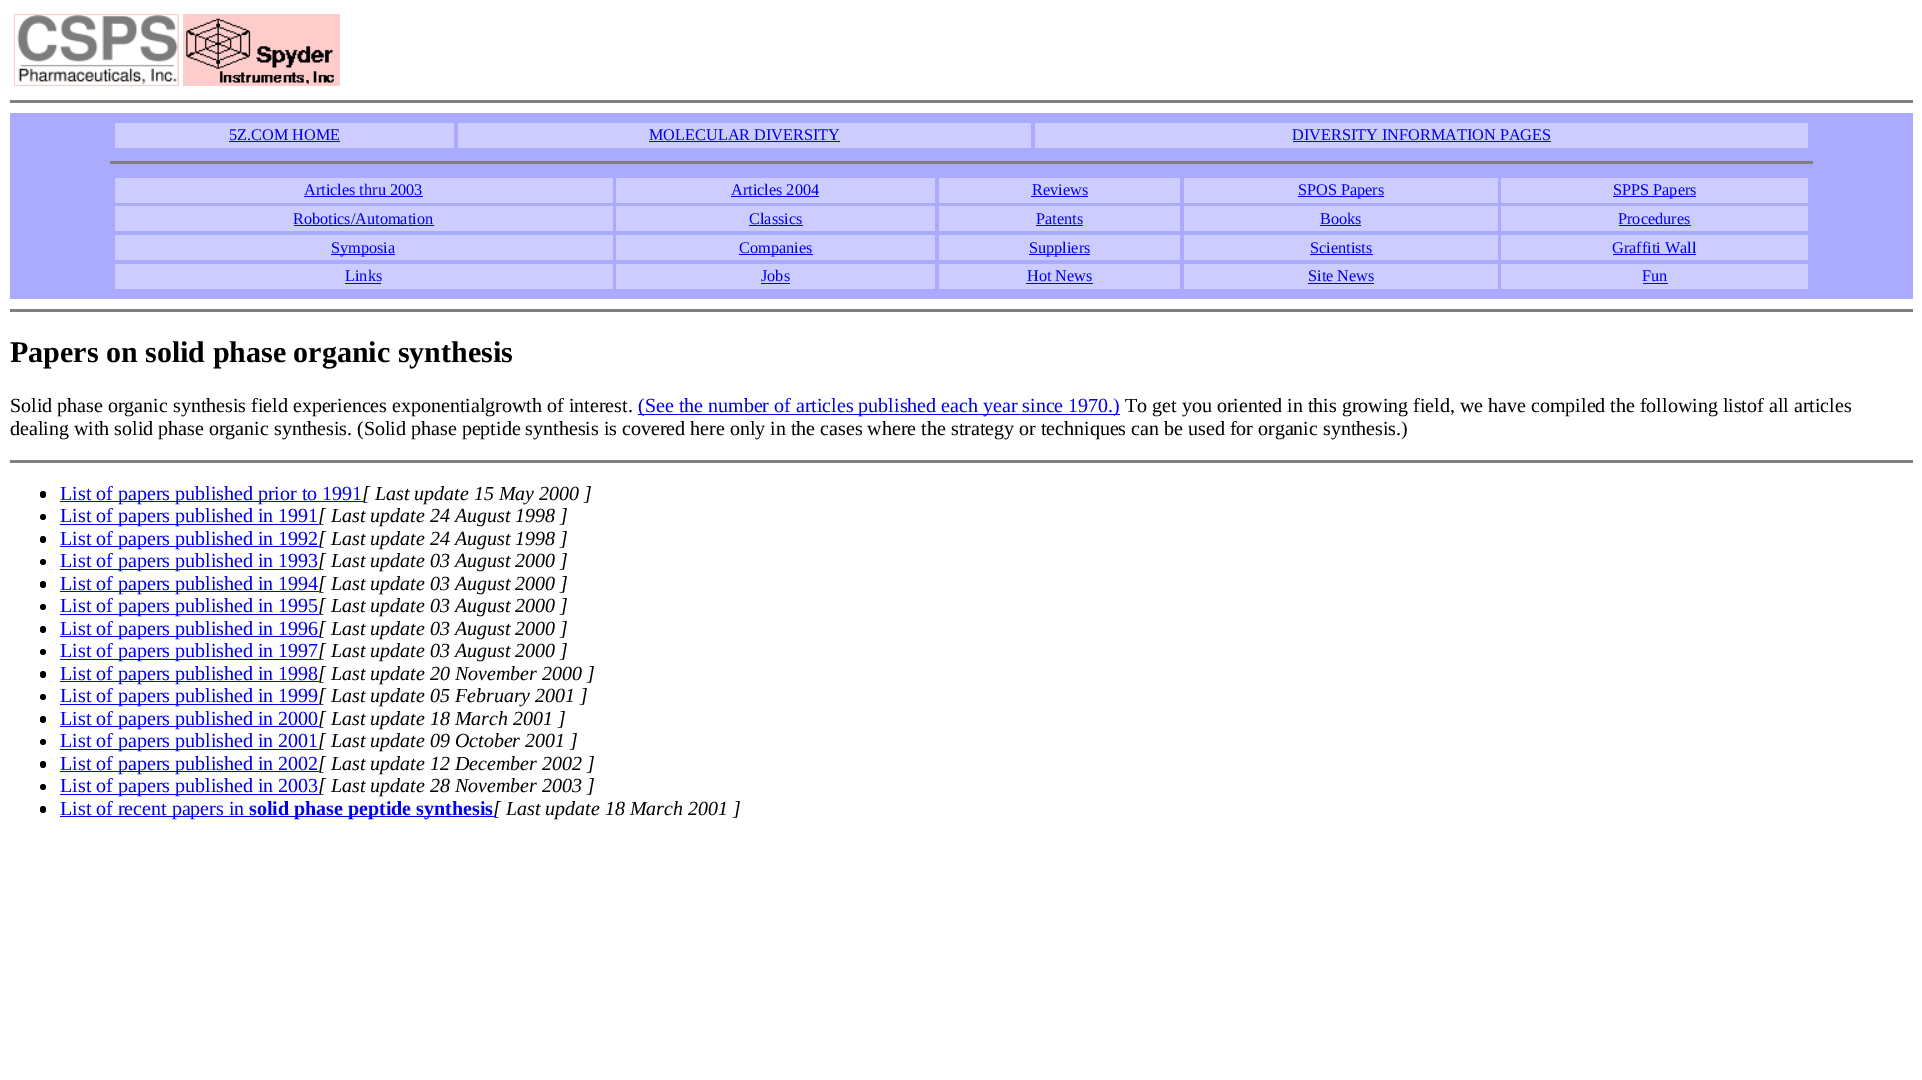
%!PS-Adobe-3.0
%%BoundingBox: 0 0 1922 1080
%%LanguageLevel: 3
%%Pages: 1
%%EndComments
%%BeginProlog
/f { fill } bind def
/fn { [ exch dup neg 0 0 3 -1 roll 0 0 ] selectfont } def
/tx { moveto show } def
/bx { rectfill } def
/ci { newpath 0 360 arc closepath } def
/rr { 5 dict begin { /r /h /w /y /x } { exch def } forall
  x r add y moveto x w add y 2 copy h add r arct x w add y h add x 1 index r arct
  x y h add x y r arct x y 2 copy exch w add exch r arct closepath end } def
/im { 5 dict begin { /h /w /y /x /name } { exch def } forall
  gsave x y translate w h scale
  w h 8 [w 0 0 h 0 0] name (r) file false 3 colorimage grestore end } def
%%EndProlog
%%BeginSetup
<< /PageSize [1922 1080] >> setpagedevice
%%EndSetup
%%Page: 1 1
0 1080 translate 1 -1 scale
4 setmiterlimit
1 setgray
0 0 1922 1080 bx
1 0.8 0.8 setrgbcolor
14 14 165 72 bx
(image0.raw) 15 15 163 70 im
183 14 157 72 bx
(image1.raw) 186 18 148 66 im
0.502 setgray
10 100 1903 3 bx
0.667 0.667 1 setrgbcolor
10 113 1903 186 bx
0.8 0.8 1 setrgbcolor
115 123 339 25 bx
/LiberationSerif-Regular 16.25 fn
0 0 0.933 setrgbcolor
(5Z.COM HOME) 229 140 tx
229 141 111 1 bx
0.8 0.8 1 setrgbcolor
458 123 573 25 bx
0 0 0.933 setrgbcolor
(MOLECULAR DIVERSITY) 649 140 tx
649 141 191 1 bx
0.8 0.8 1 setrgbcolor
1035 123 773 25 bx
0 0 0.933 setrgbcolor
(DIVERSITY INFORMATION PAGES) 1292 140 tx
1293 141 258 1 bx
0.502 setgray
110 161 1703 3 bx
0.8 0.8 1 setrgbcolor
115 178 498 25 bx
0 0 0.933 setrgbcolor
(Articles thru 2003) 304 195 tx
304 196 119 1 bx
0.8 0.8 1 setrgbcolor
616 178 319 25 bx
0 0 0.933 setrgbcolor
(Articles 2004) 731 195 tx
731 196 88 1 bx
0.8 0.8 1 setrgbcolor
939 178 241 25 bx
0 0 0.933 setrgbcolor
(Reviews) 1032 195 tx
1031 196 57 1 bx
0.8 0.8 1 setrgbcolor
1184 178 314 25 bx
0 0 0.933 setrgbcolor
1298 196 86 1 bx
(SPOS Papers) 1298 195 tx
0.8 0.8 1 setrgbcolor
1501 178 307 25 bx
0 0 0.933 setrgbcolor
1613 196 83 1 bx
(SPPS Papers) 1613 195 tx
0.8 0.8 1 setrgbcolor
115 206 498 25 bx
0 0 0.933 setrgbcolor
(Robotics/Automation) 293 224 tx
294 225 140 1 bx
0.8 0.8 1 setrgbcolor
616 206 319 25 bx
0 0 0.933 setrgbcolor
(Classics) 749 224 tx
749 225 54 1 bx
0.8 0.8 1 setrgbcolor
939 206 241 25 bx
0 0 0.933 setrgbcolor
(Patents) 1036 224 tx
1036 225 47 1 bx
0.8 0.8 1 setrgbcolor
1184 206 314 25 bx
0 0 0.933 setrgbcolor
(Books) 1320 224 tx
1320 225 41 1 bx
0.8 0.8 1 setrgbcolor
1501 206 307 25 bx
0 0 0.933 setrgbcolor
(Procedures) 1618 224 tx
1619 225 72 1 bx
0.8 0.8 1 setrgbcolor
115 235 498 25 bx
0 0 0.933 setrgbcolor
331 254 64 1 bx
(Symposia) 331 253 tx
0.8 0.8 1 setrgbcolor
616 235 319 25 bx
0 0 0.933 setrgbcolor
739 254 74 1 bx
(Companies) 739 253 tx
0.8 0.8 1 setrgbcolor
939 235 241 25 bx
0 0 0.933 setrgbcolor
1029 254 61 1 bx
(Suppliers) 1029 253 tx
0.8 0.8 1 setrgbcolor
1184 235 314 25 bx
0 0 0.933 setrgbcolor
(Scientists) 1310 253 tx
1310 254 63 1 bx
0.8 0.8 1 setrgbcolor
1501 235 307 25 bx
0 0 0.933 setrgbcolor
(Graffiti Wall) 1612 253 tx
1613 254 83 1 bx
0.8 0.8 1 setrgbcolor
115 264 498 25 bx
0 0 0.933 setrgbcolor
(Links) 345 281 tx
345 283 36 1 bx
0.8 0.8 1 setrgbcolor
616 264 319 25 bx
0 0 0.933 setrgbcolor
(Jobs) 761 281 tx
761 283 29 1 bx
0.8 0.8 1 setrgbcolor
939 264 241 25 bx
0 0 0.933 setrgbcolor
(Hot News) 1027 281 tx
1026 283 67 1 bx
0.8 0.8 1 setrgbcolor
1184 264 314 25 bx
0 0 0.933 setrgbcolor
(Site News) 1308 281 tx
1308 283 66 1 bx
0.8 0.8 1 setrgbcolor
1501 264 307 25 bx
0 0 0.933 setrgbcolor
(Fun) 1642 281 tx
1643 283 25 1 bx
0.502 setgray
10 309 1903 3 bx
/LiberationSerif-Bold 30 fn
0 setgray
(Papers on solid phase organic synthesis) 10 362 tx
/LiberationSerif-Regular 20 fn
(Solid phase organic synthesis field experiences exponentialgrowth of interest.) 10 412 tx
0 0 0.933 setrgbcolor
638 414 482 1 bx
(\(See the number of articles published each year since 1970.\)) 638 412 tx
0 setgray
(To get you oriented in this growing field, we have compiled the following listof all articles) 1125 412 tx
(dealing with solid phase organic synthesis. \(Solid phase peptide synthesis is covered here only in the cases where the strategy or techniques can be used for organic synthesis.\)) 10 435 tx
0.502 setgray
10 460 1903 3 bx
0 setgray
40 491 6 7 3 rr f
0 0 0.933 setrgbcolor
60 501 303 1 bx
(List of papers published prior to 1991) 60 500 tx
/LiberationSerif-Italic 20 fn
0 setgray
([ Last update 15 May 2000 ]) 362 500 tx
43 517 3 ci f
0 0 0.933 setrgbcolor
60 524 259 1 bx
/LiberationSerif-Regular 20 fn
(List of papers published in 1991) 60 522 tx
/LiberationSerif-Italic 20 fn
0 setgray
([ Last update 24 August 1998 ]) 318 522 tx
40 536 6 7 3 rr f
0 0 0.933 setrgbcolor
60 546 259 1 bx
/LiberationSerif-Regular 20 fn
(List of papers published in 1992) 60 545 tx
/LiberationSerif-Italic 20 fn
0 setgray
([ Last update 24 August 1998 ]) 318 545 tx
43 562 3 ci f
0 0 0.933 setrgbcolor
60 569 259 1 bx
/LiberationSerif-Regular 20 fn
(List of papers published in 1993) 60 567 tx
/LiberationSerif-Italic 20 fn
0 setgray
([ Last update 03 August 2000 ]) 318 567 tx
40 581 6 7 3 rr f
0 0 0.933 setrgbcolor
60 591 259 1 bx
/LiberationSerif-Regular 20 fn
(List of papers published in 1994) 60 590 tx
/LiberationSerif-Italic 20 fn
0 setgray
([ Last update 03 August 2000 ]) 318 590 tx
43 607 3 ci f
0 0 0.933 setrgbcolor
60 614 259 1 bx
/LiberationSerif-Regular 20 fn
(List of papers published in 1995) 60 612 tx
/LiberationSerif-Italic 20 fn
0 setgray
([ Last update 03 August 2000 ]) 318 612 tx
40 626 6 7 3 rr f
0 0 0.933 setrgbcolor
60 636 259 1 bx
/LiberationSerif-Regular 20 fn
(List of papers published in 1996) 60 635 tx
/LiberationSerif-Italic 20 fn
0 setgray
([ Last update 03 August 2000 ]) 318 635 tx
43 652 3 ci f
0 0 0.933 setrgbcolor
60 659 259 1 bx
/LiberationSerif-Regular 20 fn
(List of papers published in 1997) 60 657 tx
/LiberationSerif-Italic 20 fn
0 setgray
([ Last update 03 August 2000 ]) 318 657 tx
40 671 6 7 3 rr f
0 0 0.933 setrgbcolor
60 681 259 1 bx
/LiberationSerif-Regular 20 fn
(List of papers published in 1998) 60 680 tx
/LiberationSerif-Italic 20 fn
0 setgray
([ Last update 20 November 2000 ]) 318 680 tx
43 697 3 ci f
0 0 0.933 setrgbcolor
60 704 259 1 bx
/LiberationSerif-Regular 20 fn
(List of papers published in 1999) 60 702 tx
/LiberationSerif-Italic 20 fn
0 setgray
([ Last update 05 February 2001 ]) 318 702 tx
40 716 6 7 3 rr f
0 0 0.933 setrgbcolor
60 726 259 1 bx
/LiberationSerif-Regular 20 fn
(List of papers published in 2000) 60 725 tx
/LiberationSerif-Italic 20 fn
0 setgray
([ Last update 18 March 2001 ]) 318 725 tx
43 742 3 ci f
0 0 0.933 setrgbcolor
60 749 259 1 bx
/LiberationSerif-Regular 20 fn
(List of papers published in 2001) 60 747 tx
/LiberationSerif-Italic 20 fn
0 setgray
([ Last update 09 October 2001 ]) 318 747 tx
40 761 6 7 3 rr f
0 0 0.933 setrgbcolor
60 771 259 1 bx
/LiberationSerif-Regular 20 fn
(List of papers published in 2002) 60 770 tx
/LiberationSerif-Italic 20 fn
0 setgray
([ Last update 12 December 2002 ]) 318 770 tx
43 787 3 ci f
0 0 0.933 setrgbcolor
60 794 259 1 bx
/LiberationSerif-Regular 20 fn
(List of papers published in 2003) 60 792 tx
/LiberationSerif-Italic 20 fn
0 setgray
([ Last update 28 November 2003 ]) 318 792 tx
40 806 6 7 3 rr f
0 0 0.933 setrgbcolor
60 816 434 1 bx
/LiberationSerif-Regular 20 fn
(List of recent papers in) 60 815 tx
/LiberationSerif-Bold 20 fn
(solid phase peptide synthesis) 249 815 tx
/LiberationSerif-Italic 20 fn
0 setgray
([ Last update 18 March 2001 ]) 493 815 tx
showpage
%%EOF
